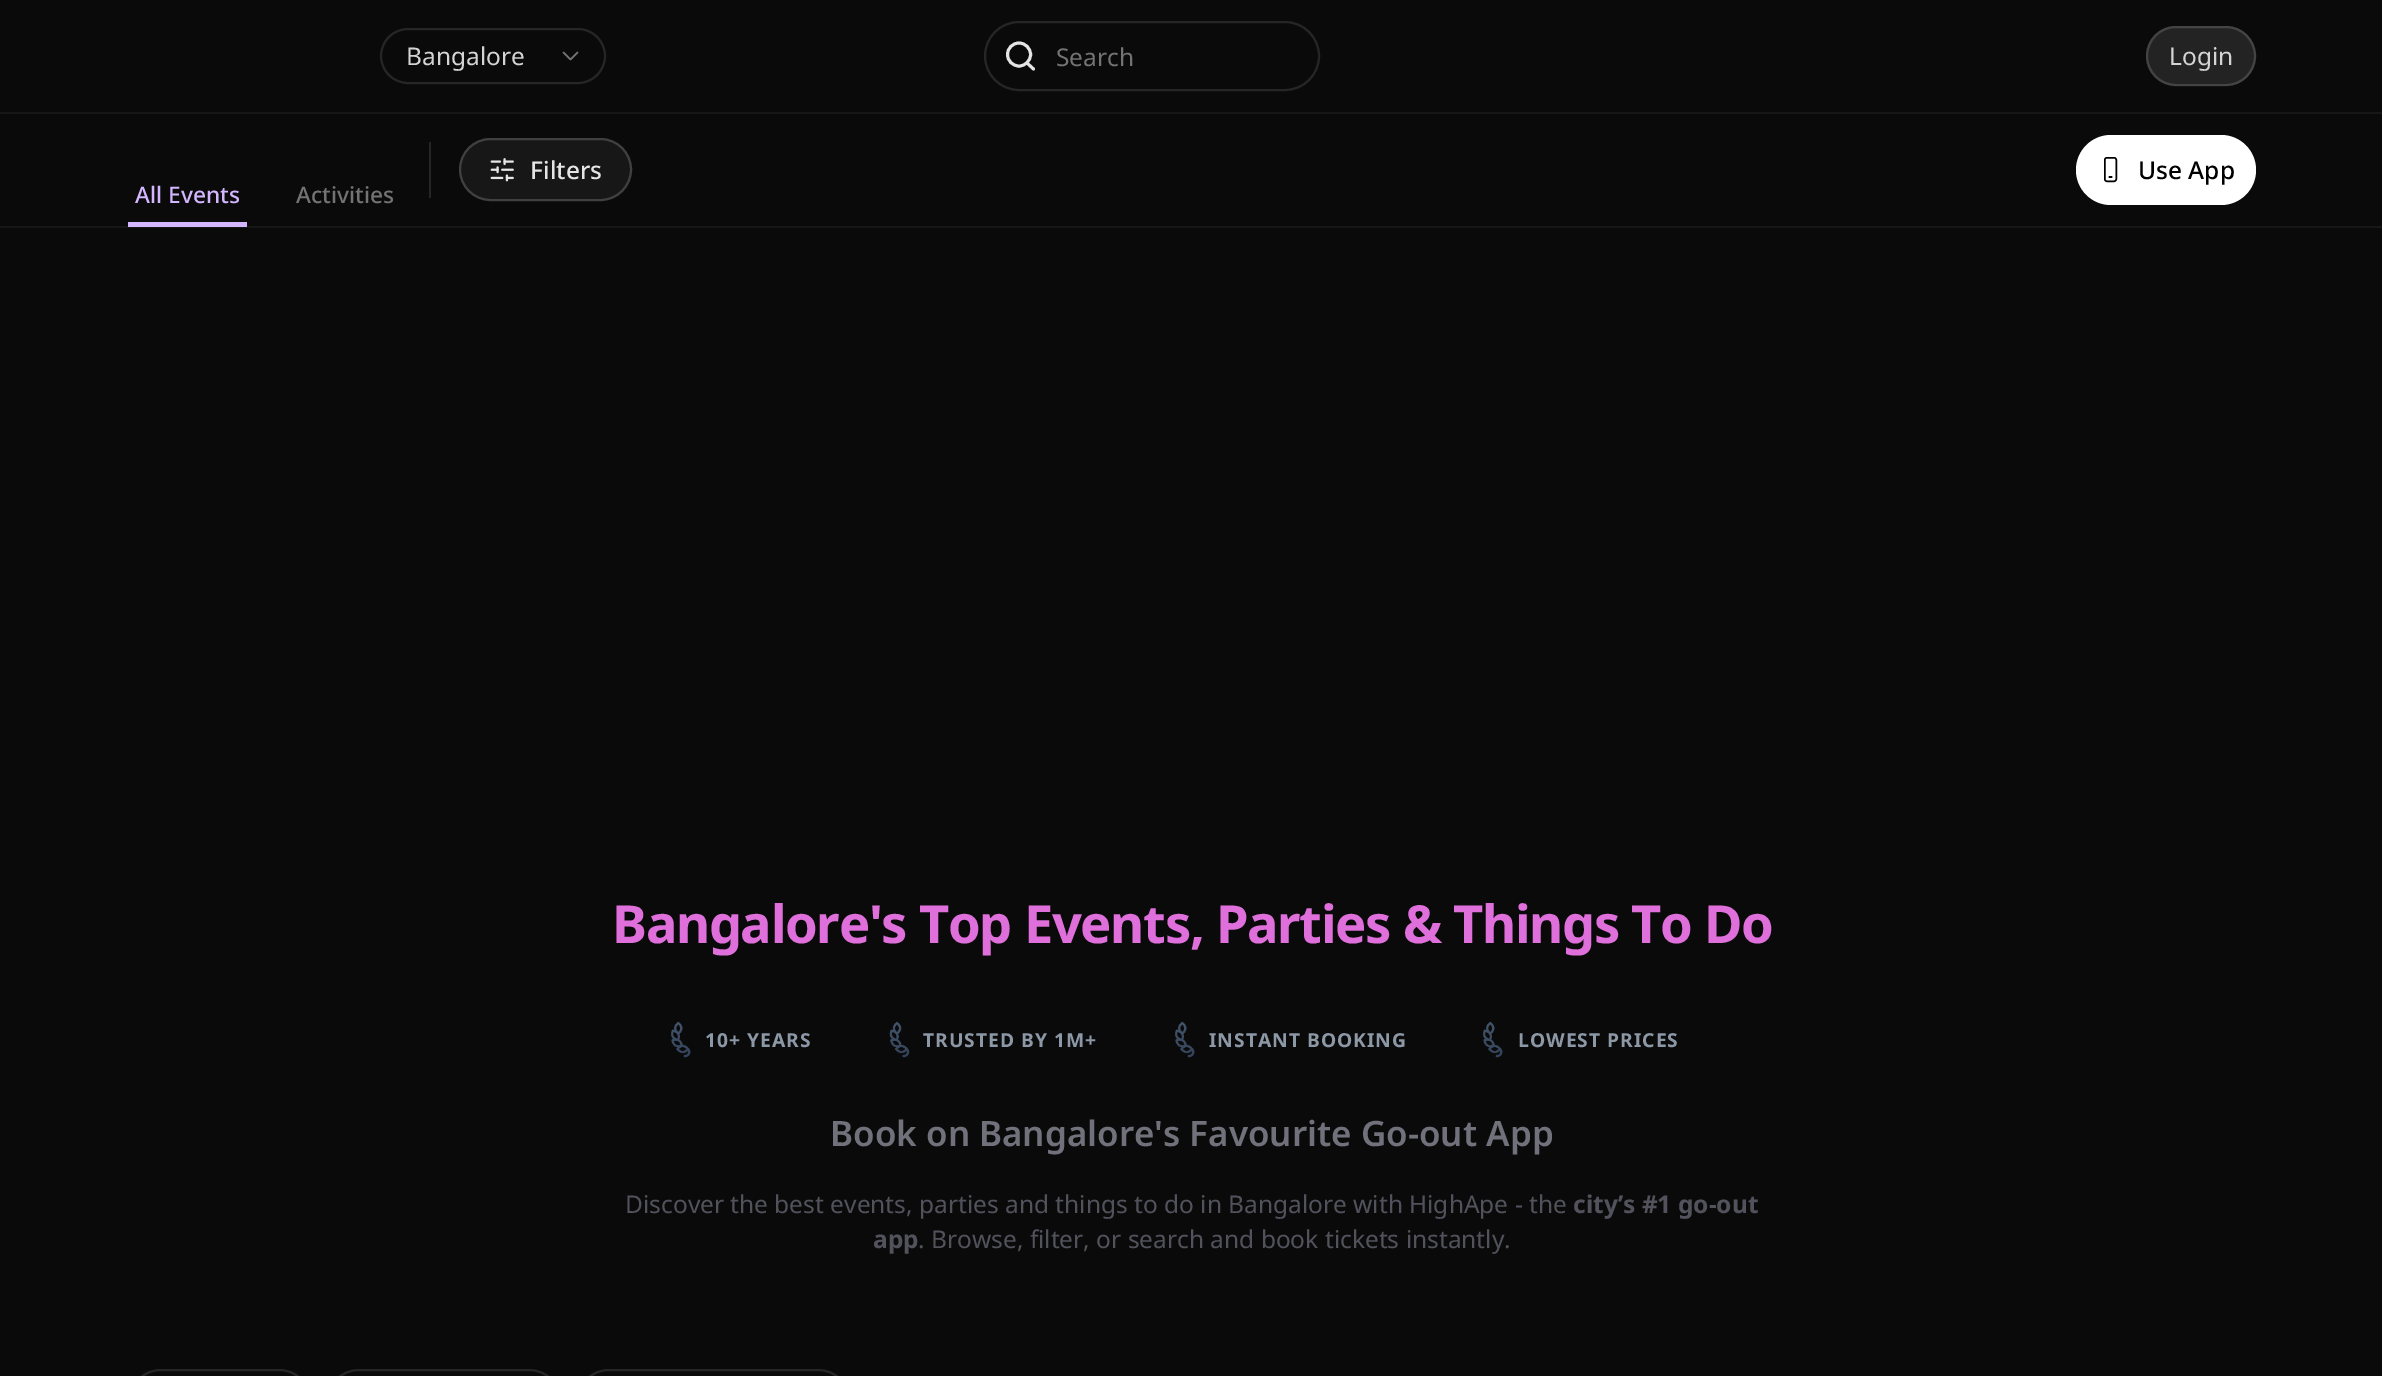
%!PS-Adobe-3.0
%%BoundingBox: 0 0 2382 1376
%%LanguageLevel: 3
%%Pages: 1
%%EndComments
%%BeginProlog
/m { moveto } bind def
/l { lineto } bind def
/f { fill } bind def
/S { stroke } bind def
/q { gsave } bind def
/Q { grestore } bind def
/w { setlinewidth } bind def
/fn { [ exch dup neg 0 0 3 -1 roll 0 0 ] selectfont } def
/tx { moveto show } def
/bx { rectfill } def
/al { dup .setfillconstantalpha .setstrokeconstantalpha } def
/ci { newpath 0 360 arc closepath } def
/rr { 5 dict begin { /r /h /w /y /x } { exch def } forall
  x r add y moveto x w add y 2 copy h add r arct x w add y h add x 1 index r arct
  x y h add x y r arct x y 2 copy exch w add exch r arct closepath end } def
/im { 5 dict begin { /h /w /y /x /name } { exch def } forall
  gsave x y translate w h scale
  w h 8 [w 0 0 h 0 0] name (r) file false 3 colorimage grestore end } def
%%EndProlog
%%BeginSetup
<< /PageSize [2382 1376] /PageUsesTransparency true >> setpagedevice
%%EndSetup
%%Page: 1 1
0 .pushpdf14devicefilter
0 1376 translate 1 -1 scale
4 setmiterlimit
0.039 setgray
0 0 2382 1376 bx
0.09 setgray
0 112 2382 2 bx
0.149 setgray
2 w
381 29 224 54 27 rr S
/NotoSans-Regular 24.5 fn
0.831 setgray
(Bangalore) 406 65 tx
0.451 setgray
1.7 w
1 setlinecap
1 setlinejoin
563.5 52.5 m 570.5 59.5 l 577.5 52.5 l S
0.149 setgray
2 w
0 setlinecap
0 setlinejoin
985 22 334 68 34 rr S
0.898 setgray
2.9 w
1 setlinecap
1 setlinejoin
1033.5 69 m 1027 63 l S
0 setlinecap
0 setlinejoin
1019 54.5 11.5 ci S
0.451 setgray
(Search) 1056 66 tx
0.137 setgray
2146 26 110 60 30 rr f
0.15 al
1 setgray
2 w
2147 27 108 58 29 rr S
1 al
0.831 setgray
(Login) 2169 65 tx
0.09 setgray
0 226 2382 2 bx
0.149 setgray
429 142 2 56 bx
0.09 setgray
460 139 171 61 30.5 rr q f Q
0.251 setgray
S
(image0.raw) 490 158 24 24 im
/NotoSans-Medium 24.5 fn
0.898 setgray
(Filters) 530 179 tx
0.827 0.714 1 setrgbcolor
128 222 119 5 bx
/NotoSans-Medium 22.75 fn
(All Events) 135 203 tx
0.451 setgray
(Activities) 296 203 tx
1 setgray
2076 135 180 70 35 rr f
0 setgray
1.5 w
2104.75 157.75 11.5 23.5 2.25 rr S
1.7 w
1 setlinecap
1 setlinejoin
2109.5 177 m 2111.5 177 l S
/NotoSans-Medium 24.5 fn
(Use App) 2138 179 tx
/NotoSans-Bold 52.5 fn
0.875 0.435 0.859 setrgbcolor
612 943 m -1.3 0 (Bangalore's Top Events, Parties & Things To Do) ashow
(image1.raw) 671 1021 20 37 im
/NotoSans-Bold 19.25 fn
0.553 0.596 0.655 setrgbcolor
705 1047 m 1 0 (10+ YEARS) ashow
(image2.raw) 889 1021 21 37 im
923 1047 m 1 0 (TRUSTED BY 1M+) ashow
(image1.raw) 1175 1021 20 37 im
1209 1047 m 1 0 (INSTANT BOOKING) ashow
(image3.raw) 1483 1021 20 37 im
1518 1047 m 1 0 (LOWEST PRICES) ashow
/NotoSans-SemiBold 35 fn
0.443 0.443 0.482 setrgbcolor
(Book on Bangalore's Favourite Go-out App) 830 1146 tx
/NotoSans-Regular 24.5 fn
0.322 0.322 0.361 setrgbcolor
(Discover the best events, parties and things to do in Bangalore with HighApe - the) 625 1213 tx
/NotoSans-Bold 24.5 fn
(city’s #1 go-out) 1573 1213 tx
(app) 873 1248 tx
/NotoSans-Regular 24.5 fn
(. Browse, filter, or search and book tickets instantly.) 918 1248 tx
0.149 setgray
2 w
0 setlinecap
0 setlinejoin
129 1370 182 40 32 rr S
327 1370 234 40 32 rr S
577 1370 273 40 32 rr S
.poppdf14devicefilter showpage
%%EOF
